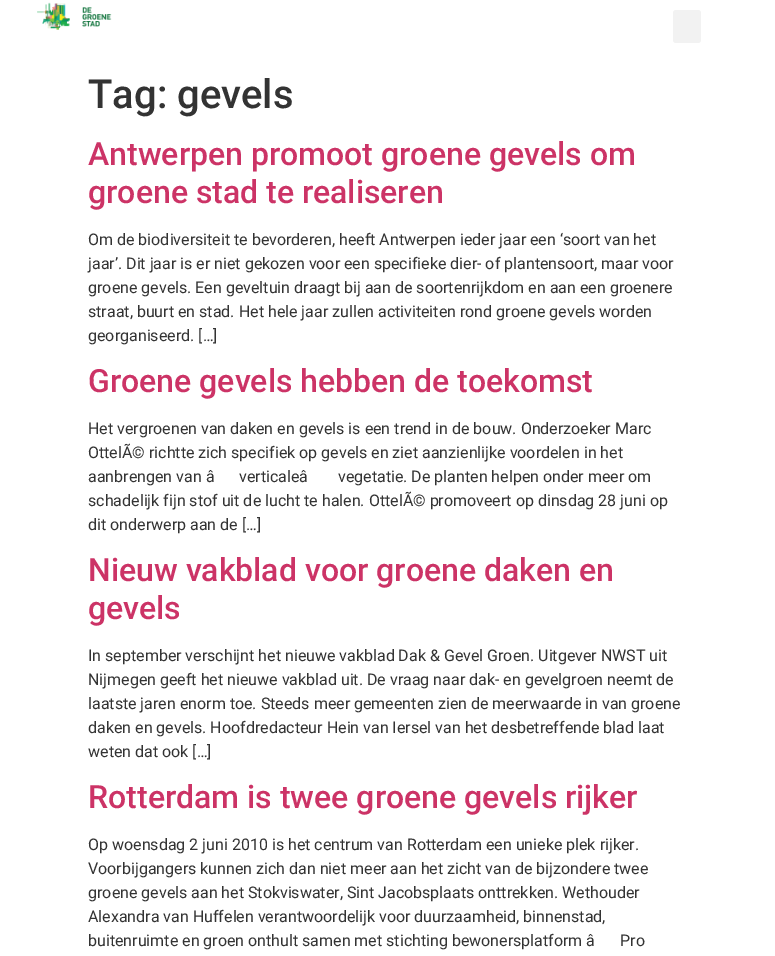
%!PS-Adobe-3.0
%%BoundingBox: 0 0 775 956
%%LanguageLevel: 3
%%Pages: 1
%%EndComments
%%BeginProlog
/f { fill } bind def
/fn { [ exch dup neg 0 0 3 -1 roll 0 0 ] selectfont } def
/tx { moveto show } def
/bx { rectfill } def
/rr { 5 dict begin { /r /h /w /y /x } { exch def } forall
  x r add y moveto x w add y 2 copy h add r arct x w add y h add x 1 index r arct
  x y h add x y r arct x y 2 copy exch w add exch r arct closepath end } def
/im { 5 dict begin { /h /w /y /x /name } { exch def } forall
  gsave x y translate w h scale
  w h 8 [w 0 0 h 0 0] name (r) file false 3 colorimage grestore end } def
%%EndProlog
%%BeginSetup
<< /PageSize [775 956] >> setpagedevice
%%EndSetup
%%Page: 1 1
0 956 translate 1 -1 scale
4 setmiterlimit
1 setgray
0 0 775 956 bx
(image0.raw) 37 2 75 28 im
0.949 setgray
673 10 28 33 3 rr f
/Roboto-Medium 40 fn
0.2 setgray
(Tag: gevels) 88 108 tx
/Roboto-Medium 32 fn
0.8 0.2 0.4 setrgbcolor
(Antwerpen promoot groene gevels om) 88 165 tx
(groene stad te realiseren) 88 203 tx
/Roboto-Regular 16 fn
0.2 setgray
(Om de biodiversiteit te bevorderen, heeft Antwerpen ieder jaar een ‘soort van het) 88 245 tx
(jaar’. Dit jaar is er niet gekozen voor een specifieke dier- of plantensoort, maar voor) 88 269 tx
(groene gevels. Een geveltuin draagt bij aan de soortenrijkdom en aan een groenere) 88 293 tx
(straat, buurt en stad. Het hele jaar zullen activiteiten rond groene gevels worden) 88 317 tx
(georganiseerd. […]) 88 341 tx
/Roboto-Medium 32 fn
0.8 0.2 0.4 setrgbcolor
(Groene gevels hebben de toekomst) 88 392 tx
/Roboto-Regular 16 fn
0.2 setgray
(Het vergroenen van daken en gevels is een trend in de bouw. Onderzoeker Marc) 88 434 tx
(OttelÃ© richtte zich specifiek op gevels en ziet aanzienlijke voordelen in het) 88 458 tx
(aanbrengen van â) 88 482 tx
(verticaleâ) 239 482 tx
(vegetatie. De planten helpen onder meer om) 338 482 tx
(schadelijk fijn stof uit de lucht te halen. OttelÃ© promoveert op dinsdag 28 juni op) 88 506 tx
(dit onderwerp aan de […]) 88 530 tx
/Roboto-Medium 32 fn
0.8 0.2 0.4 setrgbcolor
(Nieuw vakblad voor groene daken en) 88 581 tx
(gevels) 88 619 tx
/Roboto-Regular 16 fn
0.2 setgray
(In september verschijnt het nieuwe vakblad Dak & Gevel Groen. Uitgever NWST uit) 88 661 tx
(Nijmegen geeft het nieuwe vakblad uit. De vraag naar dak- en gevelgroen neemt de) 88 685 tx
(laatste jaren enorm toe. Steeds meer gemeenten zien de meerwaarde in van groene) 88 709 tx
(daken en gevels. Hoofdredacteur Hein van Iersel van het desbetreffende blad laat) 88 733 tx
(weten dat ook […]) 88 757 tx
/Roboto-Medium 32 fn
0.8 0.2 0.4 setrgbcolor
(Rotterdam is twee groene gevels rijker) 88 808 tx
/Roboto-Regular 16 fn
0.2 setgray
(Op woensdag 2 juni 2010 is het centrum van Rotterdam een unieke plek rijker.) 88 850 tx
(Voorbijgangers kunnen zich dan niet meer aan het zicht van de bijzondere twee) 88 874 tx
(groene gevels aan het Stokviswater, Sint Jacobsplaats onttrekken. Wethouder) 88 898 tx
(Alexandra van Huffelen verantwoordelijk voor duurzaamheid, binnenstad,) 88 922 tx
(buitenruimte en groen onthult samen met stichting bewonersplatform â) 88 946 tx
(Pro) 620 946 tx
showpage
%%EOF
